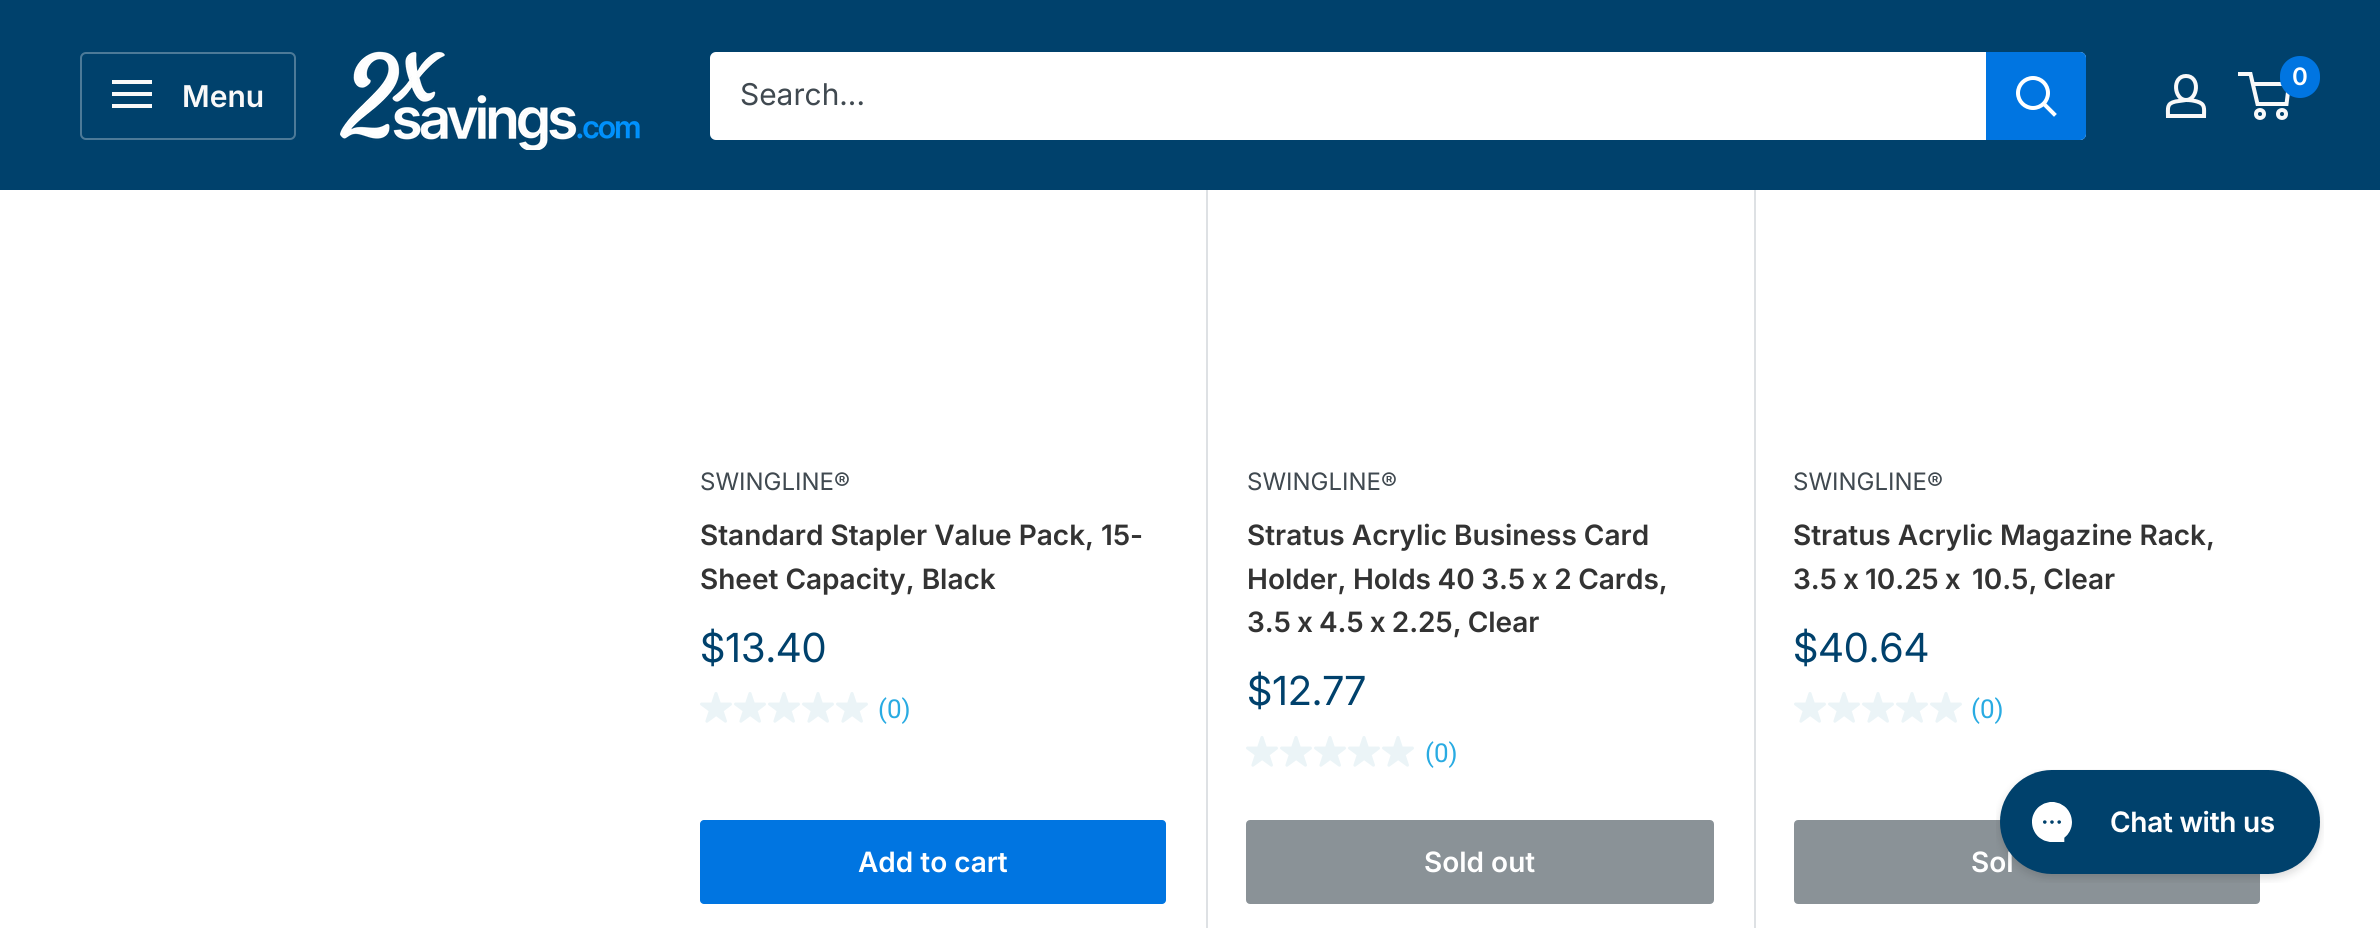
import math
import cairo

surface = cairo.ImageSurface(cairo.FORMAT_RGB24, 2380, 928)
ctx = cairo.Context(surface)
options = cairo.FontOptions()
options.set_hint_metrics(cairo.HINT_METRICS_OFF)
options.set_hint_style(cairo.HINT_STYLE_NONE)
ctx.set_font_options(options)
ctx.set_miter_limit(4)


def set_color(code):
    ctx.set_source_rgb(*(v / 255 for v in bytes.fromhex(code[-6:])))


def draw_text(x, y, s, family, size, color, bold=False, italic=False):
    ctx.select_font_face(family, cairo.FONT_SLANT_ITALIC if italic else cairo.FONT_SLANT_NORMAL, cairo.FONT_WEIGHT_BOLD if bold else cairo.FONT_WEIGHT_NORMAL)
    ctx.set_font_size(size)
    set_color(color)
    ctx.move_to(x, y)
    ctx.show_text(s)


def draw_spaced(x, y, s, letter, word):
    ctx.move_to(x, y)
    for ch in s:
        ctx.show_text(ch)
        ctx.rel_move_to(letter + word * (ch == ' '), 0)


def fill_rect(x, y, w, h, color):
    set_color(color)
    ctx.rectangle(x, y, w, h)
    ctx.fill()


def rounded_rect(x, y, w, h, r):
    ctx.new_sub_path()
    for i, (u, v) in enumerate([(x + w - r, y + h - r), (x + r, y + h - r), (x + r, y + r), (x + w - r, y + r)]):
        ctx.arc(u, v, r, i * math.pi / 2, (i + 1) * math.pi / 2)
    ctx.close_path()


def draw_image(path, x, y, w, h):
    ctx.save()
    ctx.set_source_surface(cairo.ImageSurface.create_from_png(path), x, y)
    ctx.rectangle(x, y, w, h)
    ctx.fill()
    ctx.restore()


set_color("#ffffff")
ctx.paint()
fill_rect(0, 0, 2380, 190, "#00416c")
draw_image("assets/img1.png", 340, 51, 300, 99)
ctx.new_path()
ctx.move_to(2186, 100)
ctx.curve_to(2190, 100, 2193.5, 100.5, 2197, 101.5)
ctx.curve_to(2205.5, 104, 2204, 108.5, 2204, 116)
ctx.line_to(2168, 116)
ctx.curve_to(2168, 108, 2166.5, 103.5, 2175.5, 101.5)
ctx.close_path()
ctx.move_to(2186, 100)
ctx.curve_to(2174, 100, 2171.5, 76, 2186, 76)
ctx.curve_to(2200.5, 76, 2198, 100, 2186, 100)
ctx.close_path()
set_color("#f9f9f9")
ctx.set_line_width(4)
ctx.stroke()
ctx.arc(2260, 114, 4, 0, 2 * math.pi)
ctx.stroke()
ctx.arc(2282, 114, 4, 0, 2 * math.pi)
ctx.stroke()
ctx.new_path()
ctx.move_to(2252.5, 84)
ctx.line_to(2289, 84)
ctx.line_to(2286.5, 104)
ctx.line_to(2257.5, 104)
ctx.line_to(2250.5, 74)
ctx.line_to(2238, 74)
ctx.stroke()
set_color("#0075e1")
rounded_rect(2280, 56, 40, 42, 20)
ctx.fill()
draw_text(2292, 85, "0", "Inter SemiBold", 24, "#ffffff")
rounded_rect(81, 53, 214, 86, 5)
set_color("#4d7a98")
ctx.set_line_width(2)
ctx.stroke()
set_color("#f9f9f9")
ctx.set_fill_rule(cairo.FILL_RULE_EVEN_ODD)
ctx.new_path()
ctx.move_to(112, 104)
ctx.line_to(152, 104)
ctx.line_to(152, 108)
ctx.line_to(112, 108)
ctx.close_path()
ctx.move_to(112, 80)
ctx.line_to(152, 80)
ctx.line_to(152, 84)
ctx.line_to(112, 84)
ctx.close_path()
ctx.move_to(112, 92)
ctx.line_to(152, 92)
ctx.line_to(152, 96)
ctx.line_to(112, 96)
ctx.close_path()
ctx.fill()
draw_text(182, 107, "Menu", "Inter SemiBold", 30, "#f9f9f9")
set_color("#ffffff")
rounded_rect(710, 52, 1376, 88, 6)
ctx.fill()
draw_text(740, 105, "Search...", "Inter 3", 30, "#404950")
set_color("#0075e1")
ctx.new_path()
ctx.move_to(1986, 52)
ctx.line_to(2080, 52)
ctx.curve_to(2083.5, 52, 2086, 54.5, 2086, 58)
ctx.line_to(2086, 134)
ctx.curve_to(2086, 137.5, 2083.5, 140, 2080, 140)
ctx.line_to(1986, 140)
ctx.close_path()
ctx.fill()
ctx.new_path()
ctx.move_to(2054, 114)
ctx.line_to(2044, 104)
set_color("#ffffff")
ctx.set_line_width(4)
ctx.set_line_cap(cairo.LINE_CAP_SQUARE)
ctx.stroke()
ctx.arc(2033, 93, 15, 0, 2 * math.pi)
ctx.set_line_cap(cairo.LINE_CAP_BUTT)
ctx.stroke()
draw_text(700, 490, "SWINGLINE®", "Inter", 24, "#404950")
draw_text(700, 545, "Standard Stapler Value Pack, 15-", "Inter SemiBold", 28, "#333333")
draw_text(700, 589, "Sheet Capacity, Black", "Inter SemiBold", 28, "#333333")
draw_text(700, 662, "$13.40", "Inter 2", 40, "#00416c")
draw_image("assets/img2.png", 700, 692, 32, 31)
draw_image("assets/img2.png", 734, 692, 32, 31)
draw_image("assets/img2.png", 768, 692, 32, 31)
draw_image("assets/img2.png", 802, 692, 32, 31)
draw_image("assets/img2.png", 836, 692, 32, 31)
draw_text(878, 718, "(0)", "Roboto", 26, "#29abe2")
set_color("#0075e1")
rounded_rect(700, 820, 466, 84, 4)
ctx.fill()
draw_text(858, 872, "Add to cart", "Inter SemiBold", 28, "#ffffff")
fill_rect(1206, 190, 2, 738, "#dee1e4")
draw_text(1247, 490, "SWINGLINE®", "Inter", 24, "#404950")
draw_text(1247, 545, "Stratus Acrylic Business Card", "Inter SemiBold", 28, "#333333")
draw_spaced(1247, 589, "Holder, Holds 40 3.5 x 2 Cards,", 0, -0.5)
draw_spaced(1247, 632, "3.5 x 4.5 x 2.25, Clear", 0, -1)
draw_text(1247, 705, "$12.77", "Inter 2", 40, "#00416c")
draw_image("assets/img2.png", 1246, 736, 32, 31)
draw_image("assets/img2.png", 1280, 736, 32, 31)
draw_image("assets/img2.png", 1314, 736, 32, 31)
draw_image("assets/img2.png", 1348, 736, 32, 31)
draw_image("assets/img2.png", 1382, 736, 32, 31)
draw_text(1425, 762, "(0)", "Roboto", 26, "#29abe2")
set_color("#8a9297")
rounded_rect(1247, 821, 466, 82, 3)
ctx.fill_preserve()
ctx.set_line_width(2)
ctx.stroke()
draw_text(1424, 872, "Sold out", "Inter SemiBold", 28, "#ffffff")
fill_rect(1754, 190, 2, 738, "#dee1e4")
draw_text(1793, 490, "SWINGLINE®", "Inter", 24, "#404950")
draw_text(1793, 545, "Stratus Acrylic Magazine Rack,", "Inter SemiBold", 28, "#333333")
draw_spaced(1793, 589, "3.5 x 10.25 x", 0, -1)
draw_spaced(1972, 589, "10.5, Clear", 0, -1)
draw_text(1793, 662, "$40.64", "Inter 2", 40, "#00416c")
draw_image("assets/img2.png", 1794, 692, 32, 31)
draw_image("assets/img2.png", 1828, 692, 32, 31)
draw_image("assets/img2.png", 1862, 692, 32, 31)
draw_image("assets/img2.png", 1896, 692, 32, 31)
draw_image("assets/img2.png", 1930, 692, 32, 31)
draw_text(1971, 718, "(0)", "Roboto", 26, "#29abe2")
set_color("#8a9297")
rounded_rect(1795, 821, 464, 82, 3)
ctx.fill_preserve()
ctx.stroke()
draw_text(1971, 872, "Sol", "Inter SemiBold", 28, "#ffffff")
draw_image("assets/img3.png", 1996, 769, 328, 114)
surface.write_to_png("output.png")
